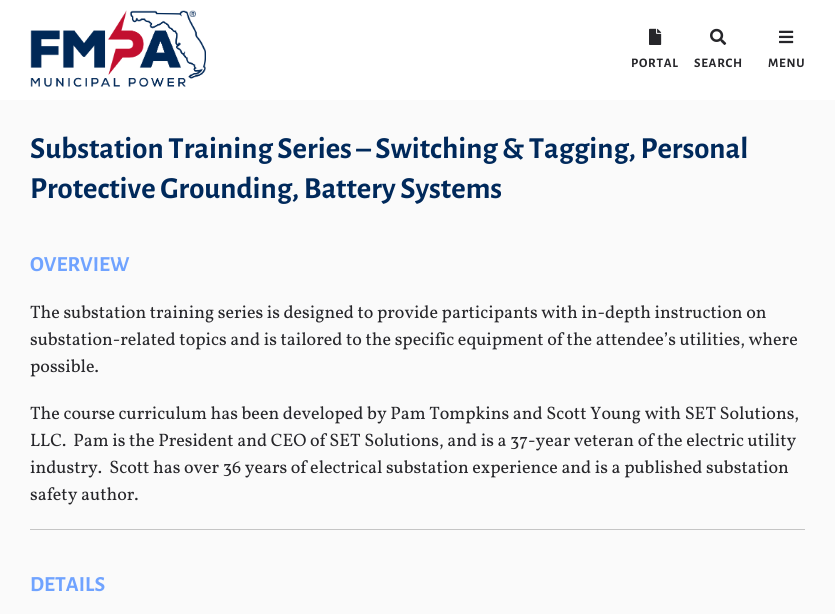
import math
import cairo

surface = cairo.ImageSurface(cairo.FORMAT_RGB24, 835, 614)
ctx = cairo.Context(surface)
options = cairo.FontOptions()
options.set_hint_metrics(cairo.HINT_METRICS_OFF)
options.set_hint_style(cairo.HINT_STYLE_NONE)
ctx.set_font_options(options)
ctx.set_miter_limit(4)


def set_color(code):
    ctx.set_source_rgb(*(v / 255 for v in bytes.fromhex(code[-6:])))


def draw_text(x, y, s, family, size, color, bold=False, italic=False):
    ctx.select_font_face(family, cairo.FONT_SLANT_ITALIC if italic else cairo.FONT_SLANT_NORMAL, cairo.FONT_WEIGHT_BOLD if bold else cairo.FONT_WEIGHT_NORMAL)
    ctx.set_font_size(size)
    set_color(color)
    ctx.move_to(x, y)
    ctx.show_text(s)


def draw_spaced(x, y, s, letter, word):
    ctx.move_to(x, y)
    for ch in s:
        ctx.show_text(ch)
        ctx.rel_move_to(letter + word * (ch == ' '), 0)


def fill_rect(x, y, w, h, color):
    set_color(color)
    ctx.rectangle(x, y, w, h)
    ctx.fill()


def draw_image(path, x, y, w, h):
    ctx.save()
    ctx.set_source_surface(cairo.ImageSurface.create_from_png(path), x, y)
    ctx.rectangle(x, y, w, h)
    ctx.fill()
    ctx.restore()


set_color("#ffffff")
ctx.paint()
draw_image("assets/img1.png", 30, 10, 176, 77)
draw_image("assets/img2.png", 649, 28, 13, 17)
ctx.select_font_face("Alegreya Sans", cairo.FONT_SLANT_NORMAL, cairo.FONT_WEIGHT_BOLD)
ctx.set_font_size(13)
set_color("#26262a")
draw_spaced(631, 67, "PORTAL", 0.75, 0)
draw_image("assets/img3.png", 710, 28, 17, 17)
draw_spaced(694, 67, "SEARCH", 0.75, 0)
draw_image("assets/img4.png", 779, 30, 15, 14)
draw_spaced(768, 67, "MENU", 0.75, 0)
fill_rect(0, 100, 835, 514, "#fafafa")
draw_text(30, 158, "Substation Training Series – Switching & Tagging, Personal", "Alegreya Sans", 30.6, "#00295b", bold=True)
draw_text(30, 198, "Protective Grounding, Battery Systems", "Alegreya Sans", 30.6, "#00295b", bold=True)
draw_text(30, 271, "OVERVIEW", "Alegreya Sans", 21.5, "#70a3ff", bold=True)
draw_text(30, 318, "The substation training series is designed to provide participants with in-depth instruction on", "Vollkorn", 18, "#26262a")
draw_text(30, 345, "substation-related topics and is tailored to the specific equipment of the attendee’s utilities, where", "Vollkorn", 18, "#26262a")
draw_text(30, 372, "possible.", "Vollkorn", 18, "#26262a")
draw_text(30, 419, "The course curriculum has been developed by Pam Tompkins and Scott Young with SET Solutions,", "Vollkorn", 18, "#26262a")
draw_text(30, 446, "LLC.  Pam is the President and CEO of SET Solutions, and is a 37-year veteran of the electric utility", "Vollkorn", 18, "#26262a")
draw_text(30, 473, "industry.  Scott has over 36 years of electrical substation experience and is a published substation", "Vollkorn", 18, "#26262a")
draw_text(30, 500, "safety author.", "Vollkorn", 18, "#26262a")
fill_rect(30, 529, 775, 1, "#c5c5c5")
draw_text(30, 591, "DETAILS", "Alegreya Sans", 21.5, "#70a3ff", bold=True)
surface.write_to_png("output.png")
